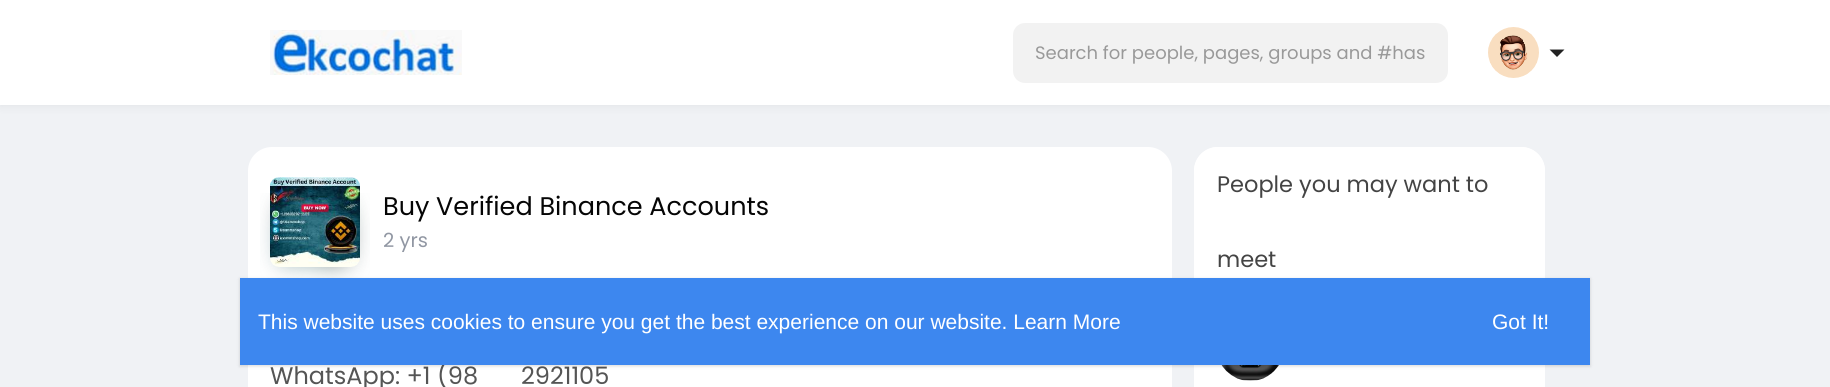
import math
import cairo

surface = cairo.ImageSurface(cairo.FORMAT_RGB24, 1830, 387)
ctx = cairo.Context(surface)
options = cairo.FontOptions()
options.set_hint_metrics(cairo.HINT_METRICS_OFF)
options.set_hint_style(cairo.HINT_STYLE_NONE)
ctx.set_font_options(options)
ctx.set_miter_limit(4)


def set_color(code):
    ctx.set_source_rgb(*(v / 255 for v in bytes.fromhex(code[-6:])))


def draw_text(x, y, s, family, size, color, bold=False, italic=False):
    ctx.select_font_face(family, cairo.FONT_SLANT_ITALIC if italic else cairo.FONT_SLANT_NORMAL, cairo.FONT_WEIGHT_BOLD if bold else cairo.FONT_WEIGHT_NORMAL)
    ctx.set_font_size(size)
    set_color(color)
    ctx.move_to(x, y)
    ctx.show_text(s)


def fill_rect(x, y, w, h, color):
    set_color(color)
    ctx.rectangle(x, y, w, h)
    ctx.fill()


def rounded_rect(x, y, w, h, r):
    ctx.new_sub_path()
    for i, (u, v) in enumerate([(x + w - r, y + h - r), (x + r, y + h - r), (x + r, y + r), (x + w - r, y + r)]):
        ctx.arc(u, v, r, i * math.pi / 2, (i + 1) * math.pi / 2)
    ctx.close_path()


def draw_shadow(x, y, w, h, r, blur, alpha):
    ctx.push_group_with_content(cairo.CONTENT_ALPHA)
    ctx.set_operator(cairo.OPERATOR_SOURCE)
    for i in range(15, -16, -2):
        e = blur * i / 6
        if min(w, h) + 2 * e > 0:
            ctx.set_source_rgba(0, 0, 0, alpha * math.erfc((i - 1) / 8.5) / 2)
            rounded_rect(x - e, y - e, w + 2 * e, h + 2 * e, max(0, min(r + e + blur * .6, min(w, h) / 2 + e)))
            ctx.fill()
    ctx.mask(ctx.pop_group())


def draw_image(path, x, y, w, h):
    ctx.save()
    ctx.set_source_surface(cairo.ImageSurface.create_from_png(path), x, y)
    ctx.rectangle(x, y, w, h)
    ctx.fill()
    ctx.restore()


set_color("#f0f2f5")
ctx.paint()
set_color("#000000")
draw_shadow(0, 2, 1830, 105, 0, 4.5, 0.05)
fill_rect(0, 0, 1830, 105, "#ffffff")
draw_image("assets/img1.png", 270, 30, 192, 45)
set_color("#f2f2f2")
rounded_rect(1013, 23, 435, 60, 12)
ctx.fill()
draw_text(1035, 59, "Search for people, pages, groups and #has", "Poppins", 18, "#999999")
draw_image("assets/img2.png", 1488, 27, 51, 51)
set_color("#222222")
ctx.new_path()
ctx.move_to(1549.5, 49.5)
ctx.line_to(1564.5, 49.5)
ctx.line_to(1557, 57)
ctx.close_path()
ctx.fill()
set_color("#ffffff")
rounded_rect(248, 147, 924, 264, 24)
ctx.fill()
draw_image("assets/img4.png", 260, 193, 110, 85)
draw_image("assets/img3.png", 270, 177, 90, 90)
draw_text(383, 215, "Buy Verified Binance Accounts", "Poppins", 25.5, "#050505")
draw_text(383, 247, "2 yrs", "Poppins", 19.5, "#9197a3")
draw_text(270, 384, "WhatsApp: +1 (98", "Poppins", 24, "#555555")
draw_text(521, 384, "2921105", "Poppins", 24, "#555555")
set_color("#ffffff")
rounded_rect(1194, 147, 351, 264, 24)
ctx.fill()
ctx.new_path()
ctx.move_to(1218, 147)
ctx.line_to(1521, 147)
ctx.curve_to(1534.5, 147, 1545, 157.5, 1545, 171)
ctx.line_to(1545, 297)
ctx.line_to(1194, 297)
ctx.line_to(1194, 171)
ctx.curve_to(1194, 157.5, 1204.5, 147, 1218, 147)
ctx.close_path()
ctx.fill()
draw_text(1217, 192, "People you may want to", "Poppins", 22.5, "#444444")
draw_text(1217, 267, "meet", "Poppins", 22.5, "#444444")
draw_image("assets/img5.png", 1221, 365, 58, 16)
set_color("#000000")
draw_shadow(240, 279, 1350, 87, 0, 1.5, 0.06)
draw_shadow(240, 279, 1350, 87, 0, 2, 0.1)
fill_rect(240, 278, 1350, 87, "#3d87ef")
draw_text(258, 329, "This website uses cookies to ensure you get the best experience on our website. Learn More", "Liberation Sans", 21, "#ffffff")
draw_text(1492, 329, "Got It!", "Liberation Sans", 21, "#ffffff")
surface.write_to_png("output.png")
